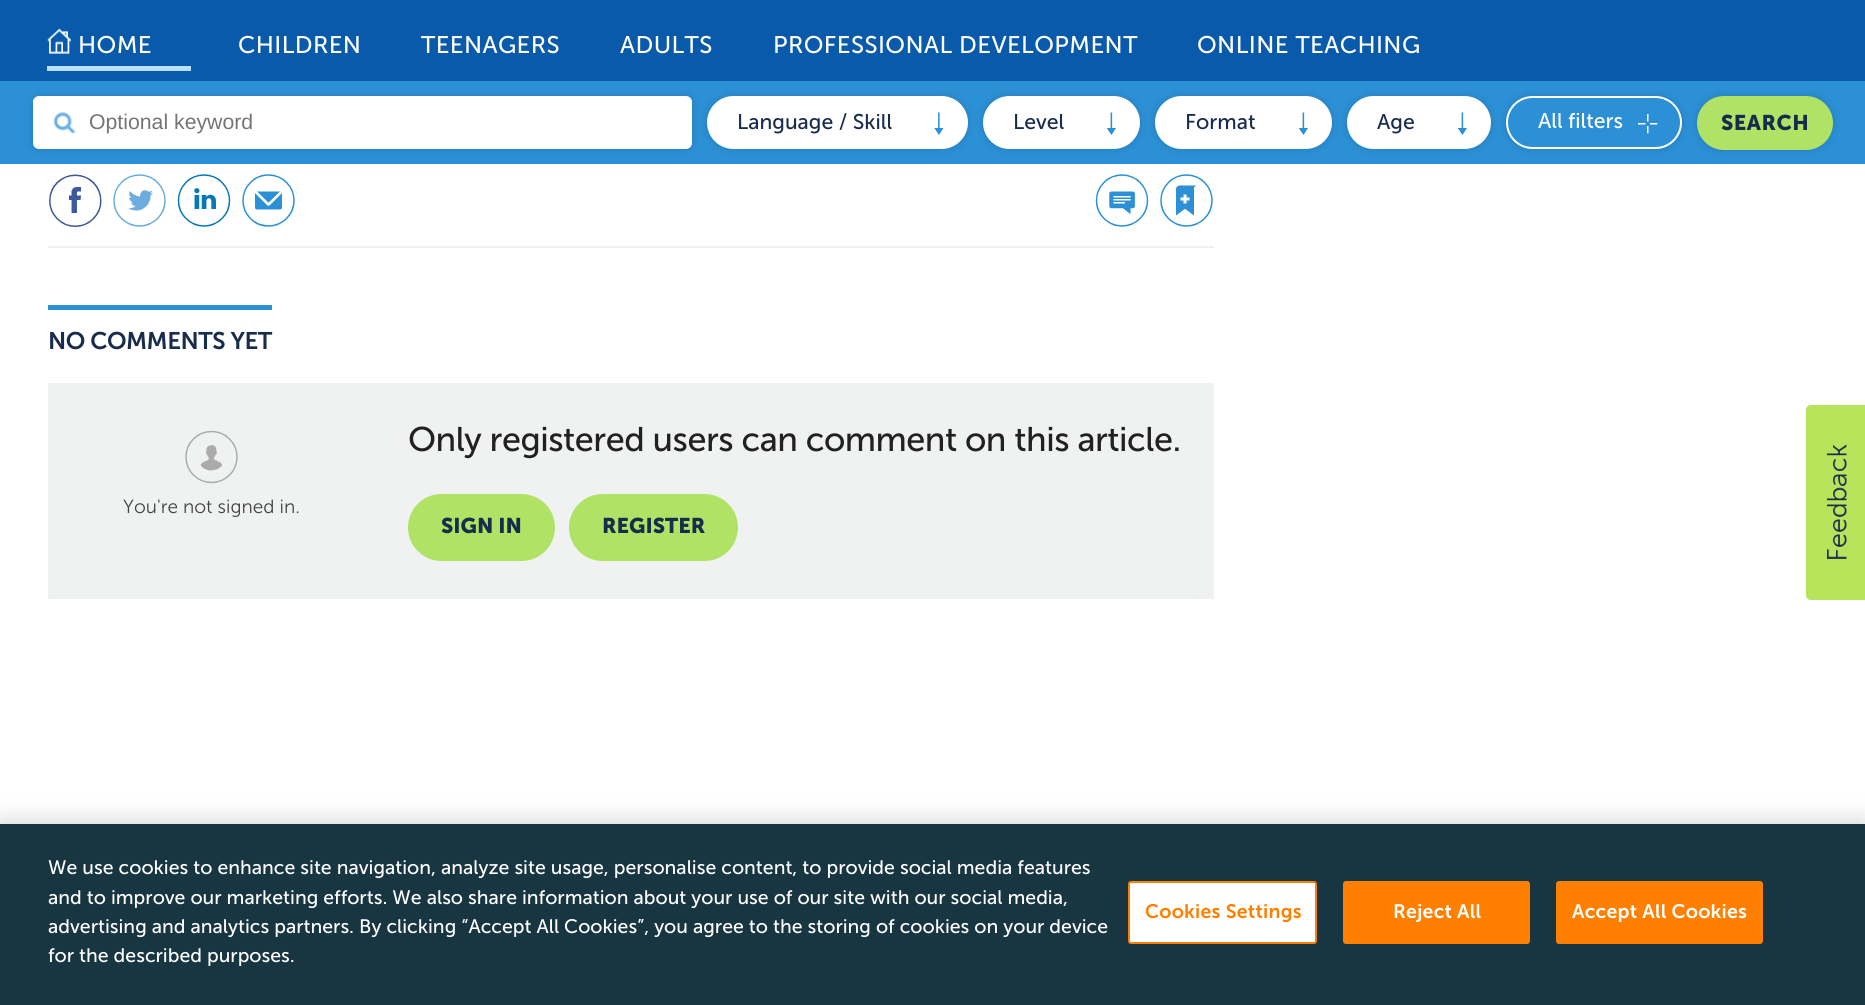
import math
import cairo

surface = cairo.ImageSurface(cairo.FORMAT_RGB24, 1865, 1005)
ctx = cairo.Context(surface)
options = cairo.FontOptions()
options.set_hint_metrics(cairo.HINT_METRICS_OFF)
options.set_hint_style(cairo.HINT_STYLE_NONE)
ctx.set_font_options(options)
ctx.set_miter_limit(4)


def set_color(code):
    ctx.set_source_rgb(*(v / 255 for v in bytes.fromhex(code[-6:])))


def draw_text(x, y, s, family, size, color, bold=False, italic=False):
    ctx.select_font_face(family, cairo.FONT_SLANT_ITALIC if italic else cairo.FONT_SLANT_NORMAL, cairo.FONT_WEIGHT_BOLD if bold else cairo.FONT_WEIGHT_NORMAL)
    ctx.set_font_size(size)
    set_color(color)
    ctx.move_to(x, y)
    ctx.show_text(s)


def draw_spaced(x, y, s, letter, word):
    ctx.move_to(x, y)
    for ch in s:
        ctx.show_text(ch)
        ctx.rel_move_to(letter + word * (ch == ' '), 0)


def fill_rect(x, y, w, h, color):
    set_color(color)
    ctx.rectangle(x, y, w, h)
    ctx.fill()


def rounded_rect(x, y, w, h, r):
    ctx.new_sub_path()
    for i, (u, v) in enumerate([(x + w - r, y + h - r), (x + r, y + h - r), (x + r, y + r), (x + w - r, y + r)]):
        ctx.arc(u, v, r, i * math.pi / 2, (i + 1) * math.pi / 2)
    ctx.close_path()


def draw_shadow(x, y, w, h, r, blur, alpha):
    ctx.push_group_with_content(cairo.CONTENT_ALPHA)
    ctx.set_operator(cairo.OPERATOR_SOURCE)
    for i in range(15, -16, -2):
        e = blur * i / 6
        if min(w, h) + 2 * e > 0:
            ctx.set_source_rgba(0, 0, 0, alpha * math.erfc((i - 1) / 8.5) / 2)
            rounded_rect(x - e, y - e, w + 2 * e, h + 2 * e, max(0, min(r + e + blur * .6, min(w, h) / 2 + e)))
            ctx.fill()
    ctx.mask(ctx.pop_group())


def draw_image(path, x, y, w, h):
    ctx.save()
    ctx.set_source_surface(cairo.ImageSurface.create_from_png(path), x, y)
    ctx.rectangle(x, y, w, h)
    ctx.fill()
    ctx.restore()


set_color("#ffffff")
ctx.paint()
fill_rect(0, 0, 1865, 81, "#0a5aab")
draw_image("assets/img1.png", 47, 28, 24, 26)
draw_image("assets/img2.png", 47, 28, 24, 26)
ctx.select_font_face("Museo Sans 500")
ctx.set_font_size(24)
set_color("#ffffff")
draw_spaced(78, 53, "HOME", 0.4, 0)
fill_rect(47, 66, 144, 5, "#b9e1ff")
set_color("#ffffff")
draw_spaced(238, 53, "CHILDREN", 0.4, 0)
draw_spaced(421, 53, "TEENAGERS", 0.4, 0)
draw_spaced(620, 53, "ADULTS", 0.4, 0)
draw_spaced(773, 53, "PROFESSIONAL DEVELOPMENT", 0.4, 0)
draw_spaced(1197, 53, "ONLINE TEACHING", 0.4, 0)
fill_rect(0, 81, 1865, 83, "#2c90d6")
set_color("#000000")
draw_shadow(33, 96, 659, 53, 6, 4, 0.15)
set_color("#ffffff")
rounded_rect(33, 96, 659, 53, 6)
ctx.fill()
draw_image("assets/img3.png", 53, 112, 23, 22)
draw_text(89, 129, "Optional keyword", "Liberation Sans", 21.25, "#757575")
set_color("#000000")
draw_shadow(707, 96, 261, 53, 26.5, 4, 0.15)
set_color("#ffffff")
rounded_rect(708, 97, 259, 51, 25.5)
ctx.fill_preserve()
ctx.stroke()
draw_text(737, 129, "Language / Skill", "Museo Sans 500", 21.25, "#182c4c")
draw_image("assets/img4.png", 934, 112, 10, 23)
set_color("#000000")
draw_shadow(983, 96, 157, 53, 26.5, 4, 0.15)
set_color("#ffffff")
rounded_rect(984, 97, 155, 51, 25.5)
ctx.fill_preserve()
ctx.stroke()
draw_text(1013, 129, "Level", "Museo Sans 500", 21.25, "#182c4c")
draw_image("assets/img5.png", 1106, 112, 10, 23)
set_color("#000000")
draw_shadow(1155, 96, 177, 53, 26.5, 4, 0.15)
set_color("#ffffff")
rounded_rect(1156, 97, 175, 51, 25.5)
ctx.fill_preserve()
ctx.stroke()
draw_text(1185, 129, "Format", "Museo Sans 500", 21.25, "#182c4c")
draw_image("assets/img5.png", 1298, 112, 10, 23)
set_color("#000000")
draw_shadow(1347, 96, 144, 53, 26.5, 4, 0.15)
set_color("#ffffff")
rounded_rect(1348, 97, 142, 51, 25.5)
ctx.fill_preserve()
ctx.stroke()
draw_text(1377, 129, "Age", "Museo Sans 500", 21.25, "#182c4c")
draw_image("assets/img5.png", 1457, 112, 10, 23)
set_color("#000000")
draw_shadow(1506, 96, 176, 53, 26.5, 4, 0.15)
set_color("#2c90d6")
rounded_rect(1507, 97, 174, 51, 25.5)
ctx.fill_preserve()
set_color("#ffffff")
ctx.stroke()
draw_text(1538, 128, "All filters", "Museo Sans 500", 21.25, "#ffffff")
draw_image("assets/img6.png", 1638, 114, 20, 20)
set_color("#000000")
draw_shadow(1697, 96, 136, 54, 27, 4, 0.15)
set_color("#b0e265")
rounded_rect(1697, 96, 136, 54, 27)
ctx.fill()
ctx.select_font_face("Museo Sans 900", cairo.FONT_SLANT_NORMAL, cairo.FONT_WEIGHT_BOLD)
set_color("#182c4c")
draw_spaced(1721, 130, "SEARCH", 0.5, 0)
fill_rect(48, 246, 1166, 2, "#f0f2f2")
draw_image("assets/img7.png", 49, 174, 53, 53)
draw_image("assets/img8.png", 113, 174, 53, 53)
draw_image("assets/img9.png", 177, 174, 54, 53)
draw_image("assets/img10.png", 242, 174, 53, 53)
draw_image("assets/img11.png", 1095, 174, 54, 53)
draw_image("assets/img12.png", 1160, 174, 53, 53)
fill_rect(48, 305, 224, 5, "#2c90d6")
ctx.select_font_face("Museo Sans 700 SemiBold")
ctx.set_font_size(24)
set_color("#182c4c")
draw_spaced(48, 349, "NO COMMENTS YET", -0.48, 0)
fill_rect(48, 383, 1166, 216, "#f0f2f2")
draw_image("assets/img13.png", 185, 430, 53, 54)
draw_text(123, 513, "You're not signed in.", "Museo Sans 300 Light", 19, "#444444")
ctx.select_font_face("Museo Sans 500")
ctx.set_font_size(34.2)
set_color("#212121")
draw_spaced(408, 451, "Only registered users can comment on this article.", -0.48, 0)
set_color("#b0e265")
rounded_rect(408, 494, 147, 67, 33.5)
ctx.fill()
draw_text(441, 533, "SIGN IN", "Museo Sans 900", 21.25, "#182c4c", bold=True)
set_color("#b0e265")
rounded_rect(569, 494, 169, 67, 33.5)
ctx.fill()
draw_text(602, 533, "REGISTER", "Museo Sans 900", 21.25, "#182c4c", bold=True)
draw_image("assets/img14.png", 1806, 405, 59, 195)
set_color("#000000")
draw_shadow(0, 824, 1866, 181, 0, 13.5, 0.2)
fill_rect(0, 824, 1865, 181, "#183642")
draw_text(48, 874, "We use cookies to enhance site navigation, analyze site usage, personalise content, to provide social media features", "Museo Sans 500", 19.5, "#ffffff")
draw_text(48, 904, "and to improve our marketing efforts. We also share information about your use of our site with our social media,", "Museo Sans 500", 19.5, "#ffffff")
draw_text(48, 933, "advertising and analytics partners. By clicking “Accept All Cookies”, you agree to the storing of cookies on your device", "Museo Sans 500", 19.5, "#ffffff")
draw_text(48, 962, "for the described purposes.", "Museo Sans 500", 19.5, "#ffffff")
rounded_rect(1129, 882, 187, 61, 2)
ctx.fill_preserve()
set_color("#ff8000")
ctx.stroke()
ctx.select_font_face("Museo Sans 700 SemiBold")
draw_spaced(1145, 918, "Cookies Settings", 0.25, 0)
rounded_rect(1344, 882, 185, 61, 2)
ctx.fill_preserve()
ctx.stroke()
set_color("#ffffff")
draw_spaced(1393, 918, "Reject All", 0.25, 0)
set_color("#ff8000")
rounded_rect(1557, 882, 205, 61, 2)
ctx.fill_preserve()
ctx.stroke()
set_color("#ffffff")
draw_spaced(1572, 918, "Accept All Cookies", 0.25, 0)
surface.write_to_png("output.png")
